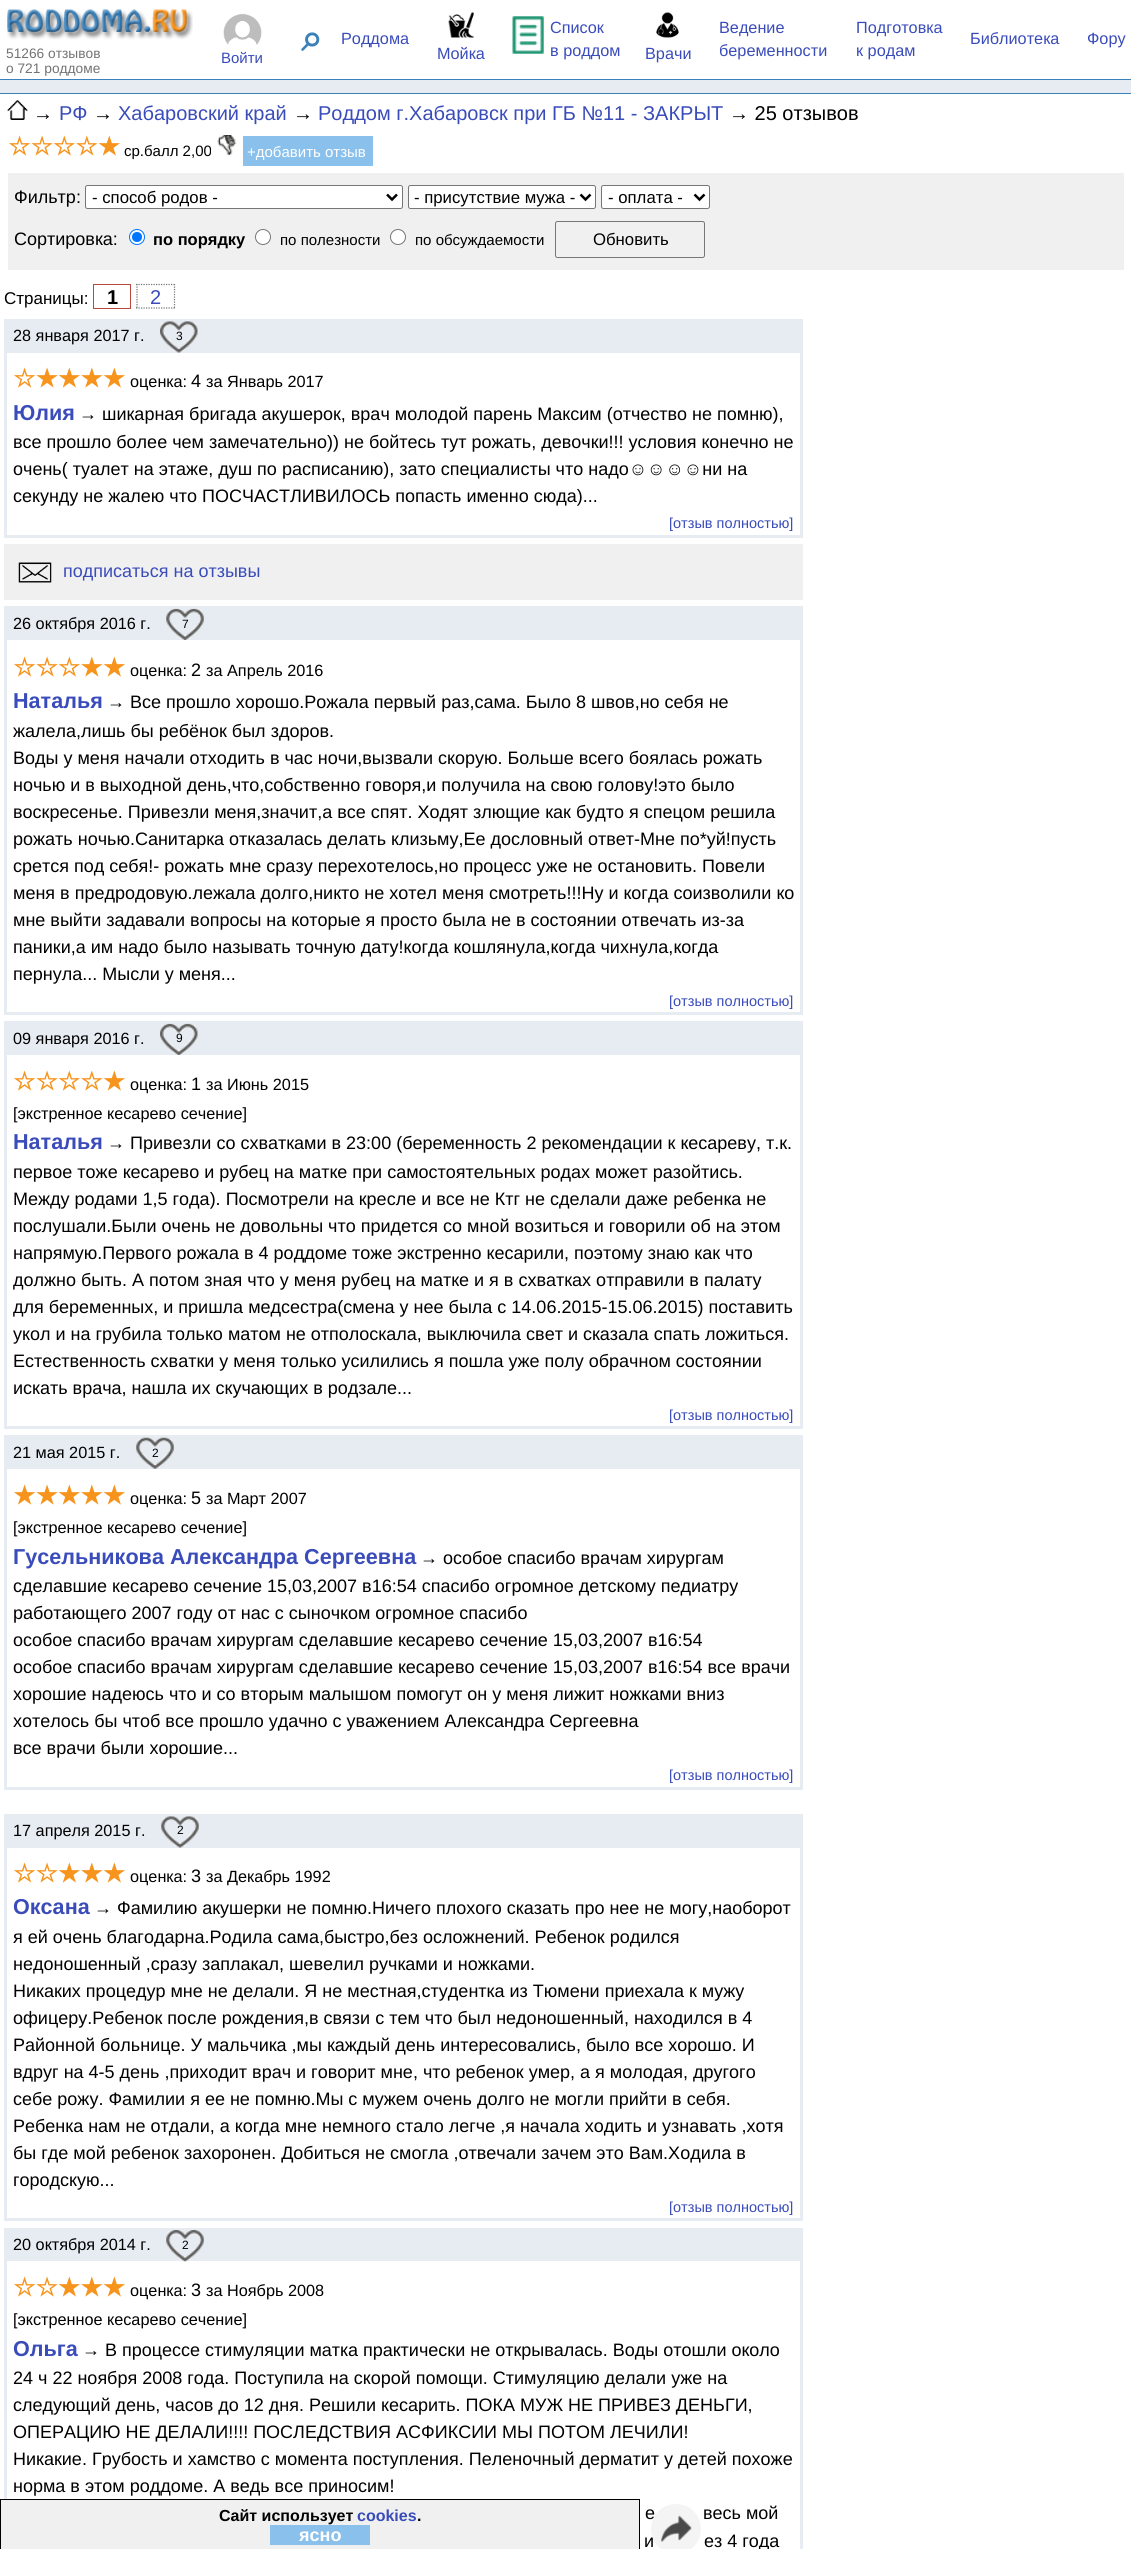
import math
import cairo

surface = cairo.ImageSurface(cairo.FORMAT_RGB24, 1131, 2549)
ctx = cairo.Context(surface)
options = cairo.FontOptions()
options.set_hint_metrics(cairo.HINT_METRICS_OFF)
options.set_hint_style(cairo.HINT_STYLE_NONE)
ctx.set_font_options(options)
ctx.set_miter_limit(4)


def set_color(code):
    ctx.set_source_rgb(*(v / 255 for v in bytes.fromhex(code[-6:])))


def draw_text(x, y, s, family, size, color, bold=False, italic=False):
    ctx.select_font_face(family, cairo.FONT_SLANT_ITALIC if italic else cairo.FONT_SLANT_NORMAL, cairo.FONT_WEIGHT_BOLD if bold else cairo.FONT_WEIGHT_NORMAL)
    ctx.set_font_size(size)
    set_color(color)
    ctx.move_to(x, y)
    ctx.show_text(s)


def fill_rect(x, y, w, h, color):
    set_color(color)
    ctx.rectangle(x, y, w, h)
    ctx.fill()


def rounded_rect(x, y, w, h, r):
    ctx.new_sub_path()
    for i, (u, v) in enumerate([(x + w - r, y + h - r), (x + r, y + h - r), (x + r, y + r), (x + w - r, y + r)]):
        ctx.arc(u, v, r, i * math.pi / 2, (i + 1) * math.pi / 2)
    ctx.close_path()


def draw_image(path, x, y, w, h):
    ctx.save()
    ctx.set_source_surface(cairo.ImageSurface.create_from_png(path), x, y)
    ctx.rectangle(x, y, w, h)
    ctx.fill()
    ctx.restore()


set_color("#e6ecf2")
ctx.paint()
fill_rect(0, 0, 1131, 79, "#ffffff")
fill_rect(0, 79, 1131, 1, "#3a81ba")
draw_text(301, 51, "⌕", "FreeSerif", 38, "#3a81ba", bold=True)
draw_text(341, 44, "Роддома", "Liberation Sans", 16.25, "#3a4cba")
draw_image("assets/img1.png", 512, 16, 32, 38)
draw_text(550, 33, "Список", "Liberation Sans", 16.25, "#3a4cba")
draw_text(550, 56, "в роддом", "Liberation Sans", 16.25, "#3a4cba")
draw_text(719, 33, "Ведение", "Liberation Sans", 16.25, "#3a4cba")
draw_text(719, 56, "беременности", "Liberation Sans", 16.25, "#3a4cba")
draw_text(856, 33, "Подготовка", "Liberation Sans", 16.25, "#3a4cba")
draw_text(856, 56, "к родам", "Liberation Sans", 16.25, "#3a4cba")
draw_text(970, 44, "Библиотека", "Liberation Sans", 16.25, "#3a4cba")
draw_text(1087, 44, "Фору", "Liberation Sans", 16.25, "#3a4cba")
draw_image("assets/img2.png", 448, 12, 26, 26)
draw_text(437, 59, "Мойка", "Liberation Sans", 16.25, "#3a4cba")
draw_image("assets/img3.png", 656, 12, 23, 26)
draw_text(645, 59, "Врачи", "Liberation Sans", 16.25, "#3a4cba")
draw_image("assets/img4.png", 7, 9, 186, 31)
draw_text(6, 58, "51266 отзывов", "Liberation Sans", 13.75, "#737373")
draw_text(6, 73, "о 721 роддоме", "Liberation Sans", 13.75, "#737373")
draw_image("assets/img5.png", 223, 13, 39, 32)
draw_text(221, 63, "Войти", "Liberation Sans", 15, "#3a4cba")
fill_rect(0, 94, 1131, 2455, "#ffffff")
fill_rect(0, 93, 1131, 1, "#3a81ba")
draw_image("assets/img6.png", 7, 100, 21, 20)
draw_text(33, 120, "→", "Liberation Sans", 20, "#000000")
draw_text(59, 120, "РФ", "Liberation Sans", 20, "#3a4cba")
draw_text(93, 120, "→", "Liberation Sans", 20, "#000000")
draw_text(118, 120, "Хабаровский край", "Liberation Sans", 20, "#3a4cba")
draw_text(293, 120, "→", "Liberation Sans", 20, "#000000")
draw_text(318, 120, "Роддом г.Хабаровск при ГБ №11 - ЗАКРЫТ", "Liberation Sans", 20, "#3a4cba")
draw_text(729, 120, "→ 25 отзывов", "Liberation Sans", 20, "#000000")
draw_text(8, 155, "☆☆☆☆★", "DejaVu Sans", 25, "#f7941d", bold=True)
draw_text(124, 156, "ср.балл 2,00", "Liberation Sans", 15, "#000000")
draw_image("assets/img7.png", 217, 135, 20, 20)
fill_rect(243, 136, 130, 30, "#8ac0ec")
draw_text(247, 157, "+добавить отзыв", "Liberation Sans", 15, "#ffffff")
fill_rect(8, 173, 1116, 97, "#f0f0f0")
draw_text(14, 203, "Фильтр:", "Liberation Sans", 18, "#000000")
set_color("#ffffff")
rounded_rect(85.5, 185.5, 317, 23, 2)
ctx.fill_preserve()
set_color("#767676")
ctx.set_line_width(1)
ctx.stroke()
ctx.new_path()
ctx.move_to(387, 194.5)
ctx.line_to(392, 199.5)
ctx.line_to(397, 194.5)
set_color("#000000")
ctx.set_line_width(2.5)
ctx.stroke()
draw_text(92, 203, "- способ родов -", "Liberation Sans", 16.75, "#000000")
set_color("#ffffff")
rounded_rect(408.5, 185.5, 187, 23, 2)
ctx.fill_preserve()
set_color("#767676")
ctx.set_line_width(1)
ctx.stroke()
ctx.new_path()
ctx.move_to(580.5, 194.5)
ctx.line_to(585.5, 199.5)
ctx.line_to(590.5, 194.5)
set_color("#000000")
ctx.set_line_width(2.5)
ctx.stroke()
draw_text(414, 203, "- присутствие мужа -", "Liberation Sans", 16.75, "#000000")
set_color("#ffffff")
rounded_rect(601.5, 185.5, 108, 23, 2)
ctx.fill_preserve()
set_color("#767676")
ctx.set_line_width(1)
ctx.stroke()
ctx.new_path()
ctx.move_to(694.5, 194.5)
ctx.line_to(699.5, 199.5)
ctx.line_to(704.5, 194.5)
set_color("#000000")
ctx.set_line_width(2.5)
ctx.stroke()
draw_text(608, 203, "- оплата -", "Liberation Sans", 16.75, "#000000")
draw_text(14, 245, "Сортировка:", "Liberation Sans", 18, "#000000")
set_color("#ffffff")
ctx.new_path()
ctx.arc(137, 237, 7.5, 0, 2 * math.pi)
ctx.fill_preserve()
set_color("#0075ff")
ctx.set_line_width(1)
ctx.stroke()
ctx.arc(137, 237, 5, 0, 2 * math.pi)
ctx.fill()
draw_text(153, 245, "по порядку", "Liberation Sans", 16.5, "#000000", bold=True)
set_color("#ffffff")
ctx.new_path()
ctx.arc(263, 237, 7.5, 0, 2 * math.pi)
ctx.fill_preserve()
set_color("#767676")
ctx.stroke()
draw_text(280, 245, "по полезности", "Liberation Sans", 15, "#000000")
set_color("#ffffff")
ctx.new_path()
ctx.arc(398, 237, 7.5, 0, 2 * math.pi)
ctx.fill_preserve()
set_color("#767676")
ctx.stroke()
draw_text(415, 245, "по обсуждаемости", "Liberation Sans", 15, "#000000")
rounded_rect(555.5, 221.5, 149, 36, 2)
set_color("#767676")
ctx.stroke()
draw_text(593, 245, "Обновить", "Liberation Sans", 16.75, "#000000")
draw_text(4, 304, "Страницы:", "Liberation Sans", 17, "#000000")
ctx.rectangle(93.5, 284.5, 37, 24)
set_color("#ba493a")
ctx.stroke()
draw_text(107, 304, "1", "Liberation Sans", 20, "#000000", bold=True)
ctx.new_path()
ctx.move_to(136, 284.5)
ctx.line_to(175, 284.5)
ctx.move_to(174.5, 284)
ctx.line_to(174.5, 309)
ctx.move_to(136, 308)
ctx.line_to(175, 308)
ctx.move_to(137, 284)
ctx.line_to(137, 309)
set_color("#737373")
ctx.set_line_width(1.2)
ctx.set_dash([1.25, 1.25])
ctx.stroke()
draw_text(150, 304, "2", "Liberation Sans", 20, "#3a4cba")
ctx.rectangle(5.5, 320.5, 796, 216)
set_color("#e6ecf2")
ctx.set_line_width(3)
ctx.set_dash([])
ctx.stroke()
fill_rect(7, 322, 793, 31, "#e6ecf2")
draw_text(13, 341, "28 января 2017 г.", "Liberation Sans", 16.25, "#000000")
draw_image("assets/img8.png", 160, 321, 38, 32)
draw_text(176, 340, "3", "Liberation Sans", 12, "#000000")
draw_text(13, 387, "☆★★★★", "DejaVu Sans", 25, "#f7941d", bold=True)
draw_text(130, 387, "оценка:", "Liberation Sans", 16.25, "#000000")
draw_text(191, 387, "4", "Liberation Sans", 18, "#000000")
draw_text(206, 387, "за Январь 2017", "Liberation Sans", 16.25, "#000000")
draw_text(13, 420, "Юлия", "Liberation Sans", 21.6, "#3a4cba", bold=True)
draw_text(79, 420, "→ шикарная бригада акушерок, врач молодой парень Максим (отчество не помню),", "Liberation Sans", 18, "#000000")
draw_text(13, 448, "все прошло более чем замечательно)) не бойтесь тут рожать, девочки!!! условия конечно не", "Liberation Sans", 18, "#000000")
draw_text(13, 475, "очень( туалет на этаже, душ по расписанию), зато специалисты что надо☺☺☺☺ни на", "Liberation Sans", 18, "#000000")
draw_text(13, 502, "секунду не жалею что ПОСЧАСТЛИВИЛОСЬ попасть именно сюда)...", "Liberation Sans", 18, "#000000")
draw_text(669, 528, "[отзыв полностью]", "Liberation Sans", 14.5, "#3a4cba")
fill_rect(4, 544, 799, 56, "#f0f0f0")
draw_image("assets/img9.png", 18, 562, 34, 21)
draw_text(63, 577, "подписаться на отзывы", "Liberation Sans", 18, "#3a4cba")
ctx.rectangle(5.5, 607.5, 796, 406)
set_color("#e6ecf2")
ctx.stroke()
fill_rect(7, 609, 793, 31, "#e6ecf2")
draw_text(13, 629, "26 октября 2016 г.", "Liberation Sans", 16.25, "#000000")
draw_image("assets/img10.png", 166, 608, 38, 32)
draw_text(182, 628, "7", "Liberation Sans", 12, "#000000")
draw_text(13, 676, "☆☆☆★★", "DejaVu Sans", 25, "#f7941d", bold=True)
draw_text(130, 676, "оценка:", "Liberation Sans", 16.25, "#000000")
draw_text(191, 676, "2", "Liberation Sans", 18, "#000000")
draw_text(206, 676, "за Апрель 2016", "Liberation Sans", 16.25, "#000000")
draw_text(13, 708, "Наталья", "Liberation Sans", 21.6, "#3a4cba", bold=True)
draw_text(107, 708, "→ Все прошло хорошо.Рожала первый раз,сама. Было 8 швов,но себя не", "Liberation Sans", 18, "#000000")
draw_text(13, 737, "жалела,лишь бы ребёнок был здоров.", "Liberation Sans", 18, "#000000")
draw_text(13, 764, "Воды у меня начали отходить в час ночи,вызвали скорую. Больше всего боялась рожать", "Liberation Sans", 18, "#000000")
draw_text(13, 791, "ночью и в выходной день,что,собственно говоря,и получила на свою голову!это было", "Liberation Sans", 18, "#000000")
draw_text(13, 818, "воскресенье. Привезли меня,значит,а все спят. Ходят злющие как будто я спецом решила", "Liberation Sans", 18, "#000000")
draw_text(13, 845, "рожать ночью.Санитарка отказалась делать клизьму,Ее дословный ответ-Мне по*уй!пусть", "Liberation Sans", 18, "#000000")
draw_text(13, 872, "срется под себя!- рожать мне сразу перехотелось,но процесс уже не остановить. Повели", "Liberation Sans", 18, "#000000")
draw_text(13, 899, "меня в предродовую.лежала долго,никто не хотел меня смотреть!!!Ну и когда соизволили ко", "Liberation Sans", 18, "#000000")
draw_text(13, 926, "мне выйти задавали вопросы на которые я просто была не в состоянии отвечать из-за", "Liberation Sans", 18, "#000000")
draw_text(13, 953, "паники,а им надо было называть точную дату!когда кошлянула,когда чихнула,когда", "Liberation Sans", 18, "#000000")
draw_text(13, 980, "пернула... Мысли у меня...", "Liberation Sans", 18, "#000000")
draw_text(669, 1006, "[отзыв полностью]", "Liberation Sans", 14.5, "#3a4cba")
ctx.rectangle(5.5, 1022.5, 796, 405)
set_color("#e6ecf2")
ctx.stroke()
fill_rect(7, 1024, 793, 31, "#e6ecf2")
draw_text(13, 1044, "09 января 2016 г.", "Liberation Sans", 16.25, "#000000")
draw_image("assets/img11.png", 160, 1023, 38, 32)
draw_text(176, 1042, "9", "Liberation Sans", 12, "#000000")
draw_text(13, 1090, "☆☆☆☆★", "DejaVu Sans", 25, "#f7941d", bold=True)
draw_text(130, 1090, "оценка:", "Liberation Sans", 16.25, "#000000")
draw_text(191, 1090, "1", "Liberation Sans", 18, "#000000")
draw_text(206, 1090, "за Июнь 2015", "Liberation Sans", 16.25, "#000000")
draw_text(13, 1119, "[экстренное кесарево сечение]", "Liberation Sans", 16.25, "#000000")
draw_text(13, 1149, "Наталья", "Liberation Sans", 21.6, "#3a4cba", bold=True)
draw_text(107, 1149, "→ Привезли со схватками в 23:00 (беременность 2 рекомендации к кесареву, т.к.", "Liberation Sans", 18, "#000000")
draw_text(13, 1178, "первое тоже кесарево и рубец на матке при самостоятельных родах может разойтись.", "Liberation Sans", 18, "#000000")
draw_text(13, 1205, "Между родами 1,5 года). Посмотрели на кресле и все не Ктг не сделали даже ребенка не", "Liberation Sans", 18, "#000000")
draw_text(13, 1232, "послушали.Были очень не довольны что придется со мной возиться и говорили об на этом", "Liberation Sans", 18, "#000000")
draw_text(13, 1259, "напрямую.Первого рожала в 4 роддоме тоже экстренно кесарили, поэтому знаю как что", "Liberation Sans", 18, "#000000")
draw_text(13, 1286, "должно быть. А потом зная что у меня рубец на матке и я в схватках отправили в палату", "Liberation Sans", 18, "#000000")
draw_text(13, 1313, "для беременных, и пришла медсестра(смена у нее была с 14.06.2015-15.06.2015) поставить", "Liberation Sans", 18, "#000000")
draw_text(13, 1340, "укол и на грубила только матом не отполоскала, выключила свет и сказала спать ложиться.", "Liberation Sans", 18, "#000000")
draw_text(13, 1367, "Естественность схватки у меня только усилились я пошла уже полу обрачном состоянии", "Liberation Sans", 18, "#000000")
draw_text(13, 1394, "искать врача, нашла их скучающих в родзале...", "Liberation Sans", 18, "#000000")
draw_text(669, 1420, "[отзыв полностью]", "Liberation Sans", 14.5, "#3a4cba")
ctx.rectangle(5.5, 1436.5, 796, 352)
set_color("#e6ecf2")
ctx.stroke()
fill_rect(7, 1438, 793, 31, "#e6ecf2")
draw_text(13, 1458, "21 мая 2015 г.", "Liberation Sans", 16.25, "#000000")
draw_image("assets/img12.png", 136, 1437, 38, 32)
draw_text(152, 1457, "2", "Liberation Sans", 12, "#000000")
draw_text(13, 1504, "★★★★★", "DejaVu Sans", 25, "#f7941d", bold=True)
draw_text(130, 1504, "оценка:", "Liberation Sans", 16.25, "#000000")
draw_text(191, 1504, "5", "Liberation Sans", 18, "#000000")
draw_text(206, 1504, "за Март 2007", "Liberation Sans", 16.25, "#000000")
draw_text(13, 1533, "[экстренное кесарево сечение]", "Liberation Sans", 16.25, "#000000")
draw_text(13, 1564, "Гусельникова Александра Сергеевна", "Liberation Sans", 21.6, "#3a4cba", bold=True)
draw_text(420, 1564, "→ особое спасибо врачам хирургам", "Liberation Sans", 18, "#000000")
draw_text(13, 1592, "сделавшие кесарево сечение 15,03,2007 в16:54 спасибо огромное детскому педиатру", "Liberation Sans", 18, "#000000")
draw_text(13, 1619, "работающего 2007 году от нас с сыночком огромное спасибо", "Liberation Sans", 18, "#000000")
draw_text(13, 1646, "особое спасибо врачам хирургам сделавшие кесарево сечение 15,03,2007 в16:54", "Liberation Sans", 18, "#000000")
draw_text(13, 1673, "особое спасибо врачам хирургам сделавшие кесарево сечение 15,03,2007 в16:54 все врачи", "Liberation Sans", 18, "#000000")
draw_text(13, 1700, "хорошие надеюсь что и со вторым малышом помогут он у меня лижит ножками вниз", "Liberation Sans", 18, "#000000")
draw_text(13, 1727, "хотелось бы чтоб все прошло удачно с уважением Александра Сергеевна", "Liberation Sans", 18, "#000000")
draw_text(13, 1754, "все врачи были хорошие...", "Liberation Sans", 18, "#000000")
draw_text(669, 1780, "[отзыв полностью]", "Liberation Sans", 14.5, "#3a4cba")
ctx.rectangle(5.5, 1815.5, 796, 404)
set_color("#e6ecf2")
ctx.stroke()
fill_rect(7, 1817, 793, 31, "#e6ecf2")
draw_text(13, 1836, "17 апреля 2015 г.", "Liberation Sans", 16.25, "#000000")
draw_image("assets/img13.png", 161, 1816, 38, 32)
draw_text(177, 1834, "2", "Liberation Sans", 12, "#000000")
draw_text(13, 1882, "☆☆★★★", "DejaVu Sans", 25, "#f7941d", bold=True)
draw_text(130, 1882, "оценка:", "Liberation Sans", 16.25, "#000000")
draw_text(191, 1882, "3", "Liberation Sans", 18, "#000000")
draw_text(206, 1882, "за Декабрь 1992", "Liberation Sans", 16.25, "#000000")
draw_text(13, 1914, "Оксана", "Liberation Sans", 21.6, "#3a4cba", bold=True)
draw_text(94, 1914, "→ Фамилию акушерки не помню.Ничего плохого сказать про нее не могу,наоборот", "Liberation Sans", 18, "#000000")
draw_text(13, 1943, "я ей очень благодарна.Родила сама,быстро,без осложнений. Ребенок родился", "Liberation Sans", 18, "#000000")
draw_text(13, 1970, "недоношенный ,сразу заплакал, шевелил ручками и ножками.", "Liberation Sans", 18, "#000000")
draw_text(13, 1997, "Никаких процедур мне не делали. Я не местная,студентка из Тюмени приехала к мужу", "Liberation Sans", 18, "#000000")
draw_text(13, 2024, "офицеру.Ребенок после рождения,в связи с тем что был недоношенный, находился в 4", "Liberation Sans", 18, "#000000")
draw_text(13, 2051, "Районной больнице. У мальчика ,мы каждый день интересовались, было все хорошо. И", "Liberation Sans", 18, "#000000")
draw_text(13, 2078, "вдруг на 4-5 день ,приходит врач и говорит мне, что ребенок умер, а я молодая, другого", "Liberation Sans", 18, "#000000")
draw_text(13, 2105, "себе рожу. Фамилии я ее не помню.Мы с мужем очень долго не могли прийти в себя.", "Liberation Sans", 18, "#000000")
draw_text(13, 2132, "Ребенка нам не отдали, а когда мне немного стало легче ,я начала ходить и узнавать ,хотя", "Liberation Sans", 18, "#000000")
draw_text(13, 2159, "бы где мой ребенок захоронен. Добиться не смогла ,отвечали зачем это Вам.Ходила в", "Liberation Sans", 18, "#000000")
draw_text(13, 2186, "городскую...", "Liberation Sans", 18, "#000000")
draw_text(669, 2212, "[отзыв полностью]", "Liberation Sans", 14.5, "#3a4cba")
ctx.rectangle(5.5, 2229.5, 796, 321)
set_color("#e6ecf2")
ctx.stroke()
fill_rect(7, 2231, 793, 30, "#e6ecf2")
draw_text(13, 2250, "20 октября 2014 г.", "Liberation Sans", 16.25, "#000000")
draw_image("assets/img14.png", 166, 2230, 38, 32)
draw_text(182, 2249, "2", "Liberation Sans", 12, "#000000")
draw_text(13, 2296, "☆☆★★★", "DejaVu Sans", 25, "#f7941d", bold=True)
draw_text(130, 2296, "оценка:", "Liberation Sans", 16.25, "#000000")
draw_text(191, 2296, "3", "Liberation Sans", 18, "#000000")
draw_text(206, 2296, "за Ноябрь 2008", "Liberation Sans", 16.25, "#000000")
draw_text(13, 2325, "[экстренное кесарево сечение]", "Liberation Sans", 16.25, "#000000")
draw_text(13, 2356, "Ольга", "Liberation Sans", 21.6, "#3a4cba", bold=True)
draw_text(82, 2356, "→ В процессе стимуляции матка практически не открывалась. Воды отошли около", "Liberation Sans", 18, "#000000")
draw_text(13, 2384, "24 ч 22 ноября 2008 года. Поступила на скорой помощи. Стимуляцию делали уже на", "Liberation Sans", 18, "#000000")
draw_text(13, 2411, "следующий день, часов до 12 дня. Решили кесарить. ПОКА МУЖ НЕ ПРИВЕЗ ДЕНЬГИ,", "Liberation Sans", 18, "#000000")
draw_text(13, 2438, "ОПЕРАЦИЮ НЕ ДЕЛАЛИ!!!! ПОСЛЕДСТВИЯ АСФИКСИИ МЫ ПОТОМ ЛЕЧИЛИ!", "Liberation Sans", 18, "#000000")
draw_text(13, 2465, "Никакие. Грубость и хамство с момента поступления. Пеленочный дерматит у детей похоже", "Liberation Sans", 18, "#000000")
draw_text(13, 2492, "норма в этом роддоме. А ведь все приносим!", "Liberation Sans", 18, "#000000")
draw_text(645, 2519, "е", "Liberation Sans", 18, "#000000")
draw_text(703, 2519, "весь мой", "Liberation Sans", 18, "#000000")
draw_text(644, 2547, "и", "Liberation Sans", 18, "#000000")
draw_text(704, 2547, "ез 4 года", "Liberation Sans", 18, "#000000")
set_color("#f0f0f0")
ctx.rectangle(0.5, 2499.5, 639, 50)
ctx.fill_preserve()
set_color("#000000")
ctx.set_line_width(1)
ctx.stroke()
draw_text(219, 2521, "Сайт использует", "Liberation Sans", 16, "#000000", bold=True)
draw_text(357, 2521, "cookies", "Liberation Sans", 16, "#3a4cba", bold=True)
draw_text(417, 2521, ".", "Liberation Sans", 16, "#000000", bold=True)
fill_rect(270, 2525, 100, 20, "#8ac0ec")
draw_text(299, 2541, "ясно", "Liberation Sans", 18, "#ffffff", bold=True)
ctx.set_source_rgba(0.941, 0.941, 0.941, 0.7)
ctx.new_path()
ctx.arc(676, 2529, 25, 0, 2 * math.pi)
ctx.fill()
draw_image("assets/img15.png", 661, 2515, 31, 27)
surface.write_to_png("output.png")
